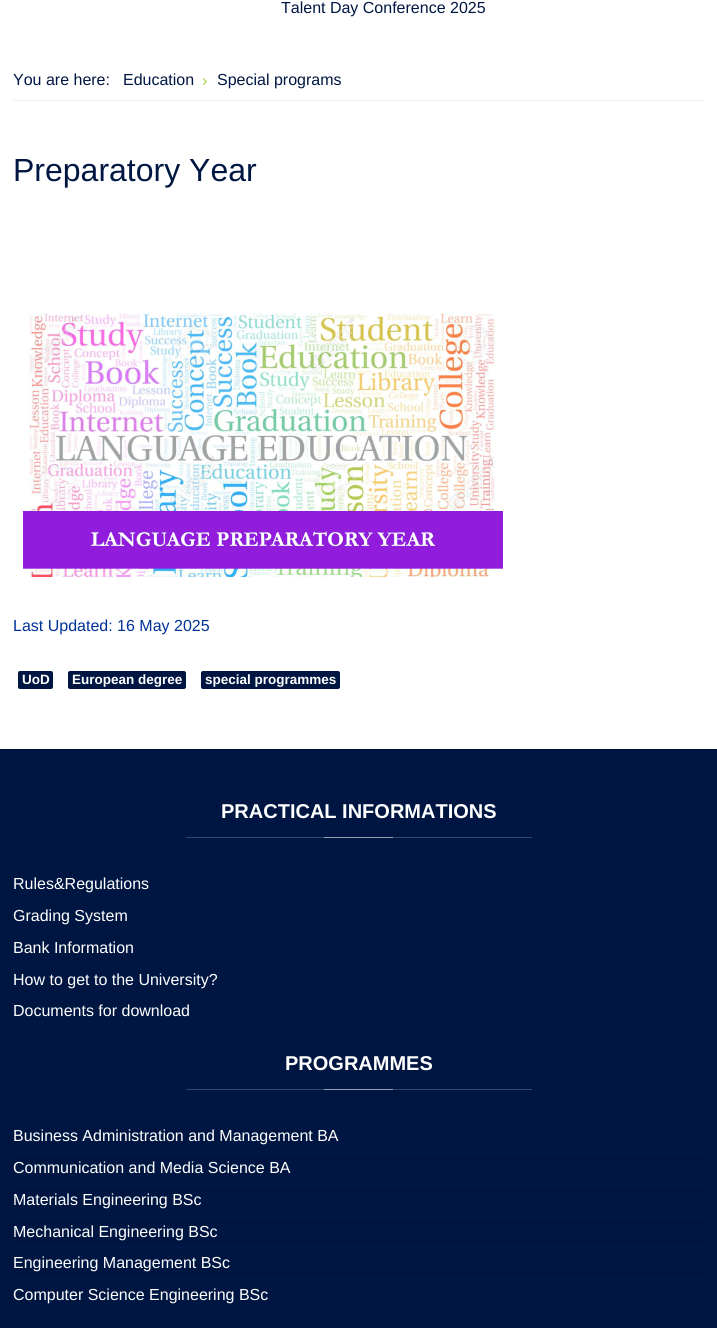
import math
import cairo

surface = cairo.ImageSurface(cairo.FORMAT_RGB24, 717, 1328)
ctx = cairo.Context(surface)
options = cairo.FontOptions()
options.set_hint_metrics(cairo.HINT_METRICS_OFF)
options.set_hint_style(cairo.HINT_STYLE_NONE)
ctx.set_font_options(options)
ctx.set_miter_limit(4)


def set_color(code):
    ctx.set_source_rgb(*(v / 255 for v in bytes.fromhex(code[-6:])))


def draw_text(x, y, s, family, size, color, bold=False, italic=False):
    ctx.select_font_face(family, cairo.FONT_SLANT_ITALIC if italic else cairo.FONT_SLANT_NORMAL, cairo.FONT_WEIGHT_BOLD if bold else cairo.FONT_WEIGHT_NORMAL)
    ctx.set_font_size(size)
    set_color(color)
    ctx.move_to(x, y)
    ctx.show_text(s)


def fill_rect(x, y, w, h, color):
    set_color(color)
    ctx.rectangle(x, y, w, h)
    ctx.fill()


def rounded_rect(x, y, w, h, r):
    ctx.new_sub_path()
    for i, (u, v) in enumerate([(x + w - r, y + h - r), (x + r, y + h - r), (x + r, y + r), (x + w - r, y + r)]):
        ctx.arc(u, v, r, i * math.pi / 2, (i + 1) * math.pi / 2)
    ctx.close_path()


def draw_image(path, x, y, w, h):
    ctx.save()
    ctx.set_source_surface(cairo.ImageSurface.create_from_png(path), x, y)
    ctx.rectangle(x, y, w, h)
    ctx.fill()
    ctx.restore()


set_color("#ffffff")
ctx.paint()
draw_text(281, 13, "Talent Day Conference 2025", "Liberation Sans", 16, "#001642")
fill_rect(13, 100, 692, 1, "#f0f0f0")
draw_text(13, 85, "You are here:", "Liberation Sans", 16, "#001642")
draw_text(123, 85, "Education", "Liberation Sans", 16, "#001642")
draw_image("assets/img1.png", 203, 78, 4, 7)
draw_text(217, 85, "Special programs", "Liberation Sans", 16, "#001642")
draw_text(13, 181, "Preparatory Year", "Liberation Sans", 32, "#001642")
draw_image("assets/img2.png", 23, 313, 480, 264)
draw_text(13, 631, "Last Updated: 16 May 2025", "Liberation Sans", 16, "#003295")
set_color("#001642")
rounded_rect(18, 671, 35, 18, 2)
ctx.fill()
draw_text(22, 684, "UoD", "Liberation Sans", 13.5, "#ffffff", bold=True)
set_color("#001642")
rounded_rect(68, 671, 118, 18, 2)
ctx.fill()
draw_text(72, 684, "European degree", "Liberation Sans", 13.5, "#ffffff", bold=True)
set_color("#001642")
rounded_rect(201, 671, 139, 18, 2)
ctx.fill()
draw_text(205, 684, "special programmes", "Liberation Sans", 13.5, "#ffffff", bold=True)
fill_rect(0, 749, 717, 579, "#001642")
fill_rect(186, 1089, 346, 1, "#334568")
fill_rect(186, 837, 346, 1, "#334568")
draw_text(221, 818, "PRACTICAL INFORMATIONS", "Liberation Sans", 20, "#ffffff", bold=True)
fill_rect(324, 837, 69, 1, "#99a2b4")
draw_text(13, 889, "Rules&Regulations", "Liberation Sans", 16, "#ffffff")
fill_rect(13, 900, 692, 1, "#001a4f")
draw_text(13, 921, "Grading System", "Liberation Sans", 16, "#ffffff")
fill_rect(13, 932, 692, 1, "#001a4f")
draw_text(13, 953, "Bank Information", "Liberation Sans", 16, "#ffffff")
fill_rect(13, 964, 692, 1, "#001a4f")
draw_text(13, 985, "How to get to the University?", "Liberation Sans", 16, "#ffffff")
fill_rect(13, 995, 692, 1, "#001a4f")
draw_text(13, 1016, "Documents for download", "Liberation Sans", 16, "#ffffff")
draw_text(285, 1070, "PROGRAMMES", "Liberation Sans", 20, "#ffffff", bold=True)
fill_rect(324, 1089, 69, 1, "#99a2b4")
draw_text(13, 1141, "Business Administration and Management BA", "Liberation Sans", 16, "#ffffff")
fill_rect(13, 1152, 692, 1, "#001a4f")
draw_text(13, 1173, "Communication and Media Science BA", "Liberation Sans", 16, "#ffffff")
fill_rect(13, 1184, 692, 1, "#001a4f")
draw_text(13, 1205, "Materials Engineering BSc", "Liberation Sans", 16, "#ffffff")
fill_rect(13, 1216, 692, 1, "#001a4f")
draw_text(13, 1237, "Mechanical Engineering BSc", "Liberation Sans", 16, "#ffffff")
fill_rect(13, 1247, 692, 1, "#001a4f")
draw_text(13, 1268, "Engineering Management BSc", "Liberation Sans", 16, "#ffffff")
fill_rect(13, 1279, 692, 1, "#001a4f")
draw_text(13, 1300, "Computer Science Engineering BSc", "Liberation Sans", 16, "#ffffff")
surface.write_to_png("output.png")
